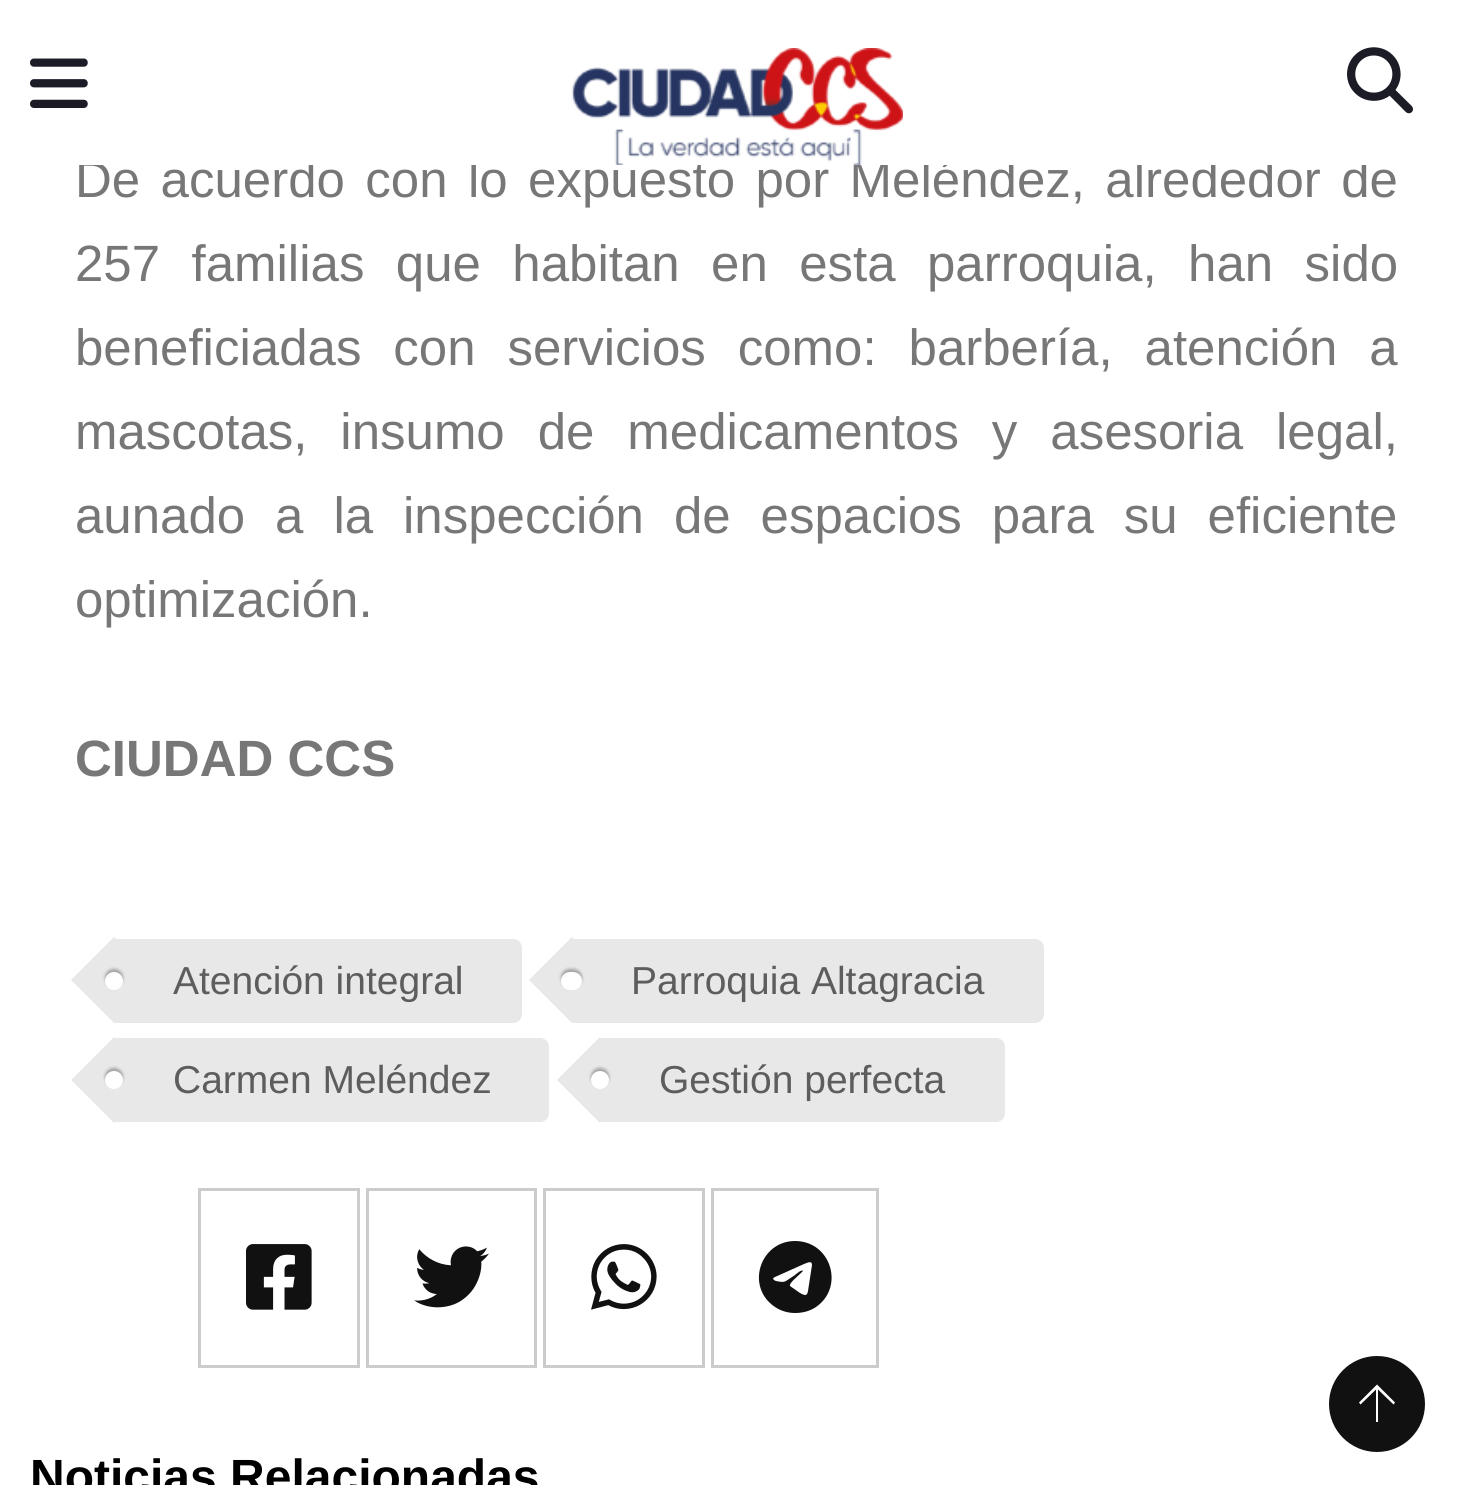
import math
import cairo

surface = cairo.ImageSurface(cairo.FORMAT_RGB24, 1471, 1485)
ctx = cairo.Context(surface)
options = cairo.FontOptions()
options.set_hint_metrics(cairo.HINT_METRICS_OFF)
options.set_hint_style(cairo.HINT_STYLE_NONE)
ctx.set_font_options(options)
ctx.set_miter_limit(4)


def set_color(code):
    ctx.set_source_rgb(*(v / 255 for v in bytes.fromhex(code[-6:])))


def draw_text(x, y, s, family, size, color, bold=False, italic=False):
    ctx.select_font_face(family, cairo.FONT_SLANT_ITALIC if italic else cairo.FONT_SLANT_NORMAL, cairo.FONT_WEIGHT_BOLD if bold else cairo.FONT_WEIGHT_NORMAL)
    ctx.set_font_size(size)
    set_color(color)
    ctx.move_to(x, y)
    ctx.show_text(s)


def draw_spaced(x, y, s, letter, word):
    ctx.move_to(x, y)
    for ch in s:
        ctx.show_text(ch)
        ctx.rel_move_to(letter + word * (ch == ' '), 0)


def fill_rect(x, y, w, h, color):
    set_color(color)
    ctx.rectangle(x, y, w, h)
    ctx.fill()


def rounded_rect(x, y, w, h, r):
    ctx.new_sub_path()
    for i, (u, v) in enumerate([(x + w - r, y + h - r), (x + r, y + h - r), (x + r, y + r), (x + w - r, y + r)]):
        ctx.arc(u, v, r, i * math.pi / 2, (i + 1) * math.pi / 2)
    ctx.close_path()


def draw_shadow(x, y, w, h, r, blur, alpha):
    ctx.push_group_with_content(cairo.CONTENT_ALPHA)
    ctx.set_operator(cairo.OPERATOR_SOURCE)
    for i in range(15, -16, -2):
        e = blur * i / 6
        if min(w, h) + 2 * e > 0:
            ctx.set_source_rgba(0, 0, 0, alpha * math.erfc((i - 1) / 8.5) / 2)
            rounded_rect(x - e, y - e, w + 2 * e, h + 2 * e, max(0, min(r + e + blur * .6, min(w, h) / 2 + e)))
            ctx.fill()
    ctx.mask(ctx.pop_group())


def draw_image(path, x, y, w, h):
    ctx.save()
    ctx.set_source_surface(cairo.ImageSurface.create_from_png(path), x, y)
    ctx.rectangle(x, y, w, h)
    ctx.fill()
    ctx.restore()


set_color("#ffffff")
ctx.paint()
ctx.select_font_face("Liberation Sans")
ctx.set_font_size(51)
set_color("#777777")
draw_spaced(75, 197, "De acuerdo con lo expuesto por Meléndez, alrededor de", 0, 6.25)
fill_rect(79, 159, 1288, 6, "#ffffff")
draw_image("assets/img1.png", 30, 58, 58, 50)
draw_image("assets/img2.png", 571, 48, 332, 117)
draw_image("assets/img3.png", 1347, 47, 66, 67)
set_color("#777777")
draw_spaced(75, 281, "257 familias que habitan en esta parroquia, han sido", 0, 17.25)
draw_spaced(75, 365, "beneficiadas con servicios como: barbería, atención a", 0, 17.75)
draw_spaced(75, 449, "mascotas, insumo de medicamentos y asesoria legal,", 0, 18.75)
draw_spaced(75, 533, "aunado a la inspección de espacios para su eficiente", 0, 15.75)
draw_text(75, 617, "optimización.", "Liberation Sans", 51, "#777777")
draw_text(75, 776, "CIUDAD CCS", "Liberation Sans", 51, "#777777", bold=True)
set_color("#e8e8e8")
ctx.new_path()
ctx.move_to(114, 939)
ctx.line_to(513, 939)
ctx.curve_to(518, 939, 522, 943, 522, 948)
ctx.line_to(522, 1014)
ctx.curve_to(522, 1019, 518, 1023, 513, 1023)
ctx.line_to(114, 1023)
ctx.close_path()
ctx.fill()
ctx.new_path()
ctx.move_to(71, 980)
ctx.line_to(114, 937)
ctx.line_to(157, 980)
ctx.line_to(114, 1023)
ctx.close_path()
ctx.fill()
set_color("#000000")
draw_shadow(105, 969, 18, 18, 9, 1.5, 0.3)
set_color("#ffffff")
ctx.arc(114, 981, 9, 0, 2 * math.pi)
ctx.fill()
draw_text(173, 994, "Atención integral", "Liberation Sans", 39, "#5d5d5d")
set_color("#e8e8e8")
ctx.new_path()
ctx.move_to(573, 939)
ctx.line_to(1035, 939)
ctx.curve_to(1040, 939, 1044, 943, 1044, 948)
ctx.line_to(1044, 1014)
ctx.curve_to(1044, 1019, 1040, 1023, 1035, 1023)
ctx.line_to(573, 1023)
ctx.close_path()
ctx.fill()
ctx.new_path()
ctx.move_to(529, 980)
ctx.line_to(572, 937)
ctx.line_to(615, 980)
ctx.line_to(572, 1023)
ctx.close_path()
ctx.fill()
set_color("#000000")
draw_shadow(561, 969, 21, 18, 9, 1.5, 0.3)
set_color("#ffffff")
rounded_rect(561, 972, 21, 18, 9)
ctx.fill()
draw_text(631, 994, "Parroquia Altagracia", "Liberation Sans", 39, "#5d5d5d")
set_color("#e8e8e8")
ctx.new_path()
ctx.move_to(114, 1038)
ctx.line_to(540, 1038)
ctx.curve_to(545, 1038, 549, 1042, 549, 1047)
ctx.line_to(549, 1113)
ctx.curve_to(549, 1118, 545, 1122, 540, 1122)
ctx.line_to(114, 1122)
ctx.close_path()
ctx.fill()
ctx.new_path()
ctx.move_to(71, 1080)
ctx.line_to(114, 1037)
ctx.line_to(157, 1080)
ctx.line_to(114, 1123)
ctx.close_path()
ctx.fill()
set_color("#000000")
draw_shadow(105, 1068, 18, 18, 9, 1.5, 0.3)
set_color("#ffffff")
ctx.arc(114, 1080, 9, 0, 2 * math.pi)
ctx.fill()
draw_text(173, 1093, "Carmen Meléndez", "Liberation Sans", 39, "#5d5d5d")
set_color("#e8e8e8")
ctx.new_path()
ctx.move_to(600, 1038)
ctx.line_to(996, 1038)
ctx.curve_to(1001, 1038, 1005, 1042, 1005, 1047)
ctx.line_to(1005, 1113)
ctx.curve_to(1005, 1118, 1001, 1122, 996, 1122)
ctx.line_to(600, 1122)
ctx.close_path()
ctx.fill()
ctx.new_path()
ctx.move_to(557, 1080)
ctx.line_to(600, 1037)
ctx.line_to(643, 1080)
ctx.line_to(600, 1123)
ctx.close_path()
ctx.fill()
set_color("#000000")
draw_shadow(591, 1068, 18, 18, 9, 1.5, 0.3)
set_color("#ffffff")
ctx.arc(600, 1080, 9, 0, 2 * math.pi)
ctx.fill()
draw_text(659, 1093, "Gestión perfecta", "Liberation Sans", 39, "#5d5d5d")
ctx.rectangle(199.5, 1189.5, 159, 177)
set_color("#cccccc")
ctx.set_line_width(3)
ctx.stroke()
draw_image("assets/img4.png", 246, 1244, 66, 66)
ctx.rectangle(367.5, 1189.5, 168, 177)
ctx.stroke()
draw_image("assets/img5.png", 414, 1246, 75, 62)
ctx.rectangle(544.5, 1189.5, 159, 177)
ctx.stroke()
draw_image("assets/img6.png", 591, 1244, 66, 66)
ctx.rectangle(712.5, 1189.5, 165, 177)
ctx.stroke()
set_color("#111111")
ctx.new_path()
ctx.move_to(795, 1241)
ctx.curve_to(760, 1241, 745, 1287, 775, 1307)
ctx.curve_to(781, 1311, 788, 1313, 795, 1313)
ctx.curve_to(803, 1313, 810, 1311, 816, 1307)
ctx.curve_to(845, 1287, 831, 1241, 795, 1241)
ctx.close_path()
ctx.move_to(812, 1265)
ctx.line_to(808, 1291)
ctx.curve_to(807, 1297, 804, 1295, 800, 1293)
ctx.line_to(790, 1286)
ctx.curve_to(789, 1283, 797, 1277, 801, 1273)
ctx.line_to(803, 1271)
ctx.curve_to(802, 1269, 796, 1274, 795, 1275)
ctx.curve_to(784, 1282, 786, 1283, 776, 1281)
ctx.curve_to(773, 1280, 772, 1278, 775, 1277)
ctx.line_to(804, 1264)
ctx.curve_to(807, 1263, 812, 1260, 812, 1265)
ctx.close_path()
ctx.fill()
draw_text(30, 1493, "Noticias Relacionadas", "Liberation Sans", 48, "#000000", bold=True)
set_color("#111111")
ctx.new_path()
ctx.arc(1377, 1404, 49.5, 0, 2 * math.pi)
ctx.fill_preserve()
set_color("#ffffff")
ctx.stroke()
ctx.new_path()
ctx.move_to(1393.5, 1404.5)
ctx.line_to(1378, 1389.5)
ctx.line_to(1378, 1422)
ctx.line_to(1376, 1422)
ctx.line_to(1376, 1389.5)
ctx.line_to(1360.5, 1404.5)
ctx.line_to(1359, 1402.5)
ctx.line_to(1377, 1384.5)
ctx.line_to(1395, 1402.5)
ctx.close_path()
ctx.fill()
surface.write_to_png("output.png")
